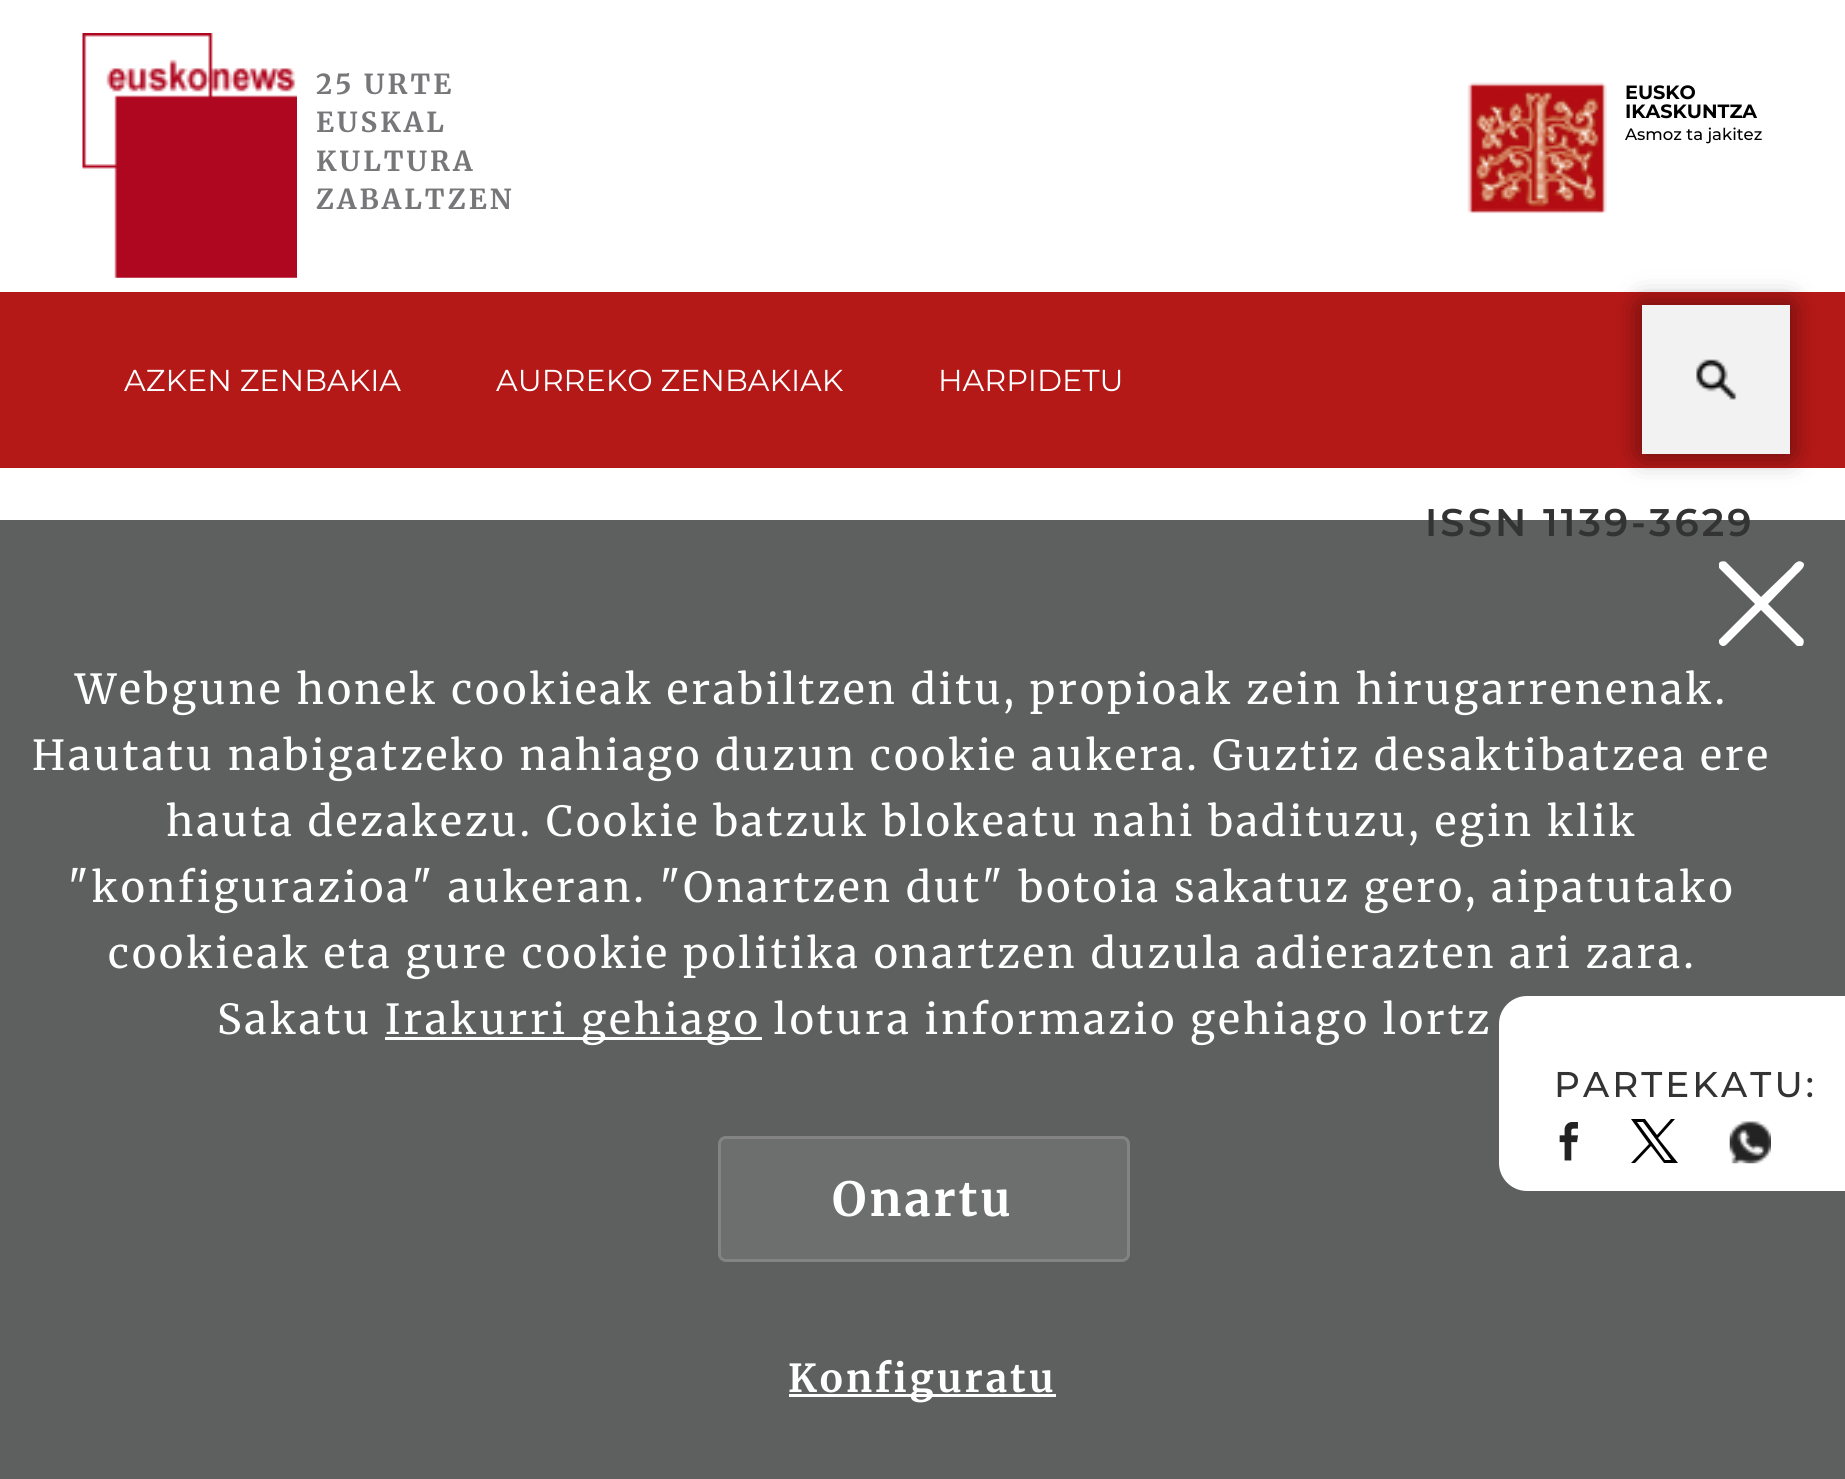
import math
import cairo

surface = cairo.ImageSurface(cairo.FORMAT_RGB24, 1845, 1479)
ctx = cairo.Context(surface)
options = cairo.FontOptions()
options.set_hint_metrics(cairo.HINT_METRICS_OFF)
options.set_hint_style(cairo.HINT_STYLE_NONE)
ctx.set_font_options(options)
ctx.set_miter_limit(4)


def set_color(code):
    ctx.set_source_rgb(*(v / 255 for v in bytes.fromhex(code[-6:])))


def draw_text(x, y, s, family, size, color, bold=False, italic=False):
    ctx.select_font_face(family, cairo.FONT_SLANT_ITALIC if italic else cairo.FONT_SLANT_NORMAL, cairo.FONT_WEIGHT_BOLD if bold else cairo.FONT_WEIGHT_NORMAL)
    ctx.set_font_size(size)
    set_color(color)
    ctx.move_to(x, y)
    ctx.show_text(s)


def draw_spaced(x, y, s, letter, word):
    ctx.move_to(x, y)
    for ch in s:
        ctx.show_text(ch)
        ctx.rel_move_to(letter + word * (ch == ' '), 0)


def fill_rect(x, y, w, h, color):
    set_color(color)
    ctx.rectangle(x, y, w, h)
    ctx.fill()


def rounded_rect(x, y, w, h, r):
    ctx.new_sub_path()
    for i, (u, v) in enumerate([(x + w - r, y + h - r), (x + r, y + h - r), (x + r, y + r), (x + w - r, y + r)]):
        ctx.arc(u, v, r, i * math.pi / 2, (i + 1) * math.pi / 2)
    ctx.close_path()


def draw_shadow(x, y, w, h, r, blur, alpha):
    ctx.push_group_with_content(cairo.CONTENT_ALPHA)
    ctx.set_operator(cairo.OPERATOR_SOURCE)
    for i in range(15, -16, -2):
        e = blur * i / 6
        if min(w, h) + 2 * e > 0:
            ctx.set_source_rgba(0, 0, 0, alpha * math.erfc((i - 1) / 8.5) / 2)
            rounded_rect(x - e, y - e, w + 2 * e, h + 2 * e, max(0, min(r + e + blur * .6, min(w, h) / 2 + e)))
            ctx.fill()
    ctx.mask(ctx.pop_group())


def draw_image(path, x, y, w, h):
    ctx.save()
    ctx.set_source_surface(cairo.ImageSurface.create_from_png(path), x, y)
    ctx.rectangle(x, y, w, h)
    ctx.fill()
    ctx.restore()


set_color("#ffffff")
ctx.paint()
draw_image("assets/img1.png", 82, 33, 215, 245)
ctx.select_font_face("Merriweather", cairo.FONT_SLANT_NORMAL, cairo.FONT_WEIGHT_BOLD)
ctx.set_font_size(27.5)
set_color("#77777a")
draw_spaced(316, 94, "25 URTE", 3.08, 0)
draw_spaced(316, 132, "EUSKAL", 3.08, 0)
draw_spaced(316, 171, "KULTURA", 3.08, 0)
draw_spaced(316, 209, "ZABALTZEN", 3.08, 0)
draw_image("assets/img2.png", 1467, 82, 140, 132)
draw_text(1625, 99, "EUSKO", "Montserrat", 19.25, "#000000", bold=True)
draw_text(1625, 118, "IKASKUNTZA", "Montserrat", 19.25, "#000000", bold=True)
draw_text(1625, 140, "Asmoz ta jakitez", "Montserrat Medium", 16.5, "#000000")
fill_rect(0, 292, 1845, 176, "#b51917")
draw_text(124, 391, "AZKEN ZENBAKIA", "Montserrat", 30.25, "#ffffff")
draw_text(496, 391, "AURREKO ZENBAKIAK", "Montserrat", 30.25, "#ffffff")
draw_text(938, 391, "HARPIDETU", "Montserrat", 30.25, "#ffffff")
set_color("#000000")
draw_shadow(1642, 305, 148, 149, 0, 14, 0.5)
fill_rect(1642, 305, 148, 149, "#f2f2f2")
draw_image("assets/img3.png", 1696, 359, 41, 41)
fill_rect(0, 520, 1845, 959, "#5e5f5f")
ctx.select_font_face("Montserrat SemiBold")
ctx.set_font_size(38.5)
set_color("#333333")
draw_spaced(1425, 536, "ISSN 1139-3629", 3.08, 0)
set_color("#ffffff")
rounded_rect(1499, 996, 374, 195, 28)
ctx.fill()
ctx.select_font_face("Montserrat Medium")
ctx.set_font_size(35.75)
set_color("#333333")
draw_spaced(1554, 1097, "PARTEKATU:", 3.08, 0)
draw_image("assets/img4.png", 1559, 1122, 19, 39)
set_color("#000000")
ctx.new_path()
ctx.move_to(1631, 1119)
ctx.line_to(1649, 1144)
ctx.line_to(1631, 1163)
ctx.line_to(1635, 1163)
ctx.line_to(1651, 1146)
ctx.line_to(1664, 1163)
ctx.line_to(1678, 1163)
ctx.line_to(1658, 1138)
ctx.line_to(1675, 1119)
ctx.line_to(1671, 1119)
ctx.line_to(1657, 1135)
ctx.line_to(1645, 1119)
ctx.close_path()
ctx.move_to(1637, 1122)
ctx.line_to(1643, 1122)
ctx.line_to(1671, 1160)
ctx.line_to(1665, 1160)
ctx.close_path()
ctx.fill()
draw_image("assets/img5.png", 1729, 1121, 42, 43)
ctx.save()
ctx.rectangle(1719, 561, 85, 85)
ctx.clip()
set_color("#ffffff")
ctx.set_fill_rule(cairo.FILL_RULE_EVEN_ODD)
ctx.new_path()
ctx.move_to(1768, 604)
ctx.line_to(1797, 574)
ctx.curve_to(1799, 572, 1808, 565, 1802, 562)
ctx.curve_to(1797, 559, 1793, 566, 1791, 568)
ctx.line_to(1761, 597)
ctx.line_to(1726, 562)
ctx.curve_to(1725, 561, 1722, 561, 1720, 562)
ctx.curve_to(1718, 564, 1718, 567, 1720, 569)
ctx.line_to(1755, 604)
ctx.line_to(1719, 640)
ctx.curve_to(1718, 644, 1722, 648, 1726, 645)
ctx.line_to(1761, 610)
ctx.line_to(1796, 645)
ctx.curve_to(1798, 647, 1801, 647, 1803, 645)
ctx.curve_to(1804, 643, 1804, 640, 1803, 639)
ctx.close_path()
ctx.fill()
ctx.restore()
ctx.select_font_face("Merriweather")
ctx.set_font_size(41.25)
set_color("#ffffff")
draw_spaced(75, 704, "Webgune honek cookieak erabiltzen ditu, propioak zein hirugarrenenak.", 3.08, 0)
draw_spaced(32, 770, "Hautatu nabigatzeko nahiago duzun cookie aukera. Guztiz desaktibatzea ere", 3.08, 0)
draw_spaced(166, 836, "hauta dezakezu. Cookie batzuk blokeatu nahi badituzu, egin klik", 3.08, 0)
draw_spaced(68, 902, "\"konfigurazioa\" aukeran. \"Onartzen dut\" botoia sakatuz gero, aipatutako", 3.08, 0)
draw_spaced(108, 968, "cookieak eta gure cookie politika onartzen duzula adierazten ari zara.", 3.08, 0)
draw_spaced(217, 1034, "Sakatu", 3.08, 0)
fill_rect(385, 1037, 377, 3, "#ffffff")
draw_spaced(385, 1034, "Irakurri gehiago lotura informazio gehiago lortz", 3.08, 0)
set_color("#6d6e6e")
rounded_rect(719.5, 1137.5, 409, 123, 6.5)
ctx.fill_preserve()
set_color("#828382")
ctx.set_line_width(3)
ctx.stroke()
ctx.select_font_face("Merriweather", cairo.FONT_SLANT_NORMAL, cairo.FONT_WEIGHT_BOLD)
ctx.set_font_size(47)
set_color("#ffffff")
draw_spaced(832, 1216, "Onartu", 3.08, 0)
fill_rect(789, 1394, 267, 3, "#ffffff")
ctx.set_font_size(38.5)
draw_spaced(788, 1392, "Konfiguratu", 3.08, 0)
surface.write_to_png("output.png")
